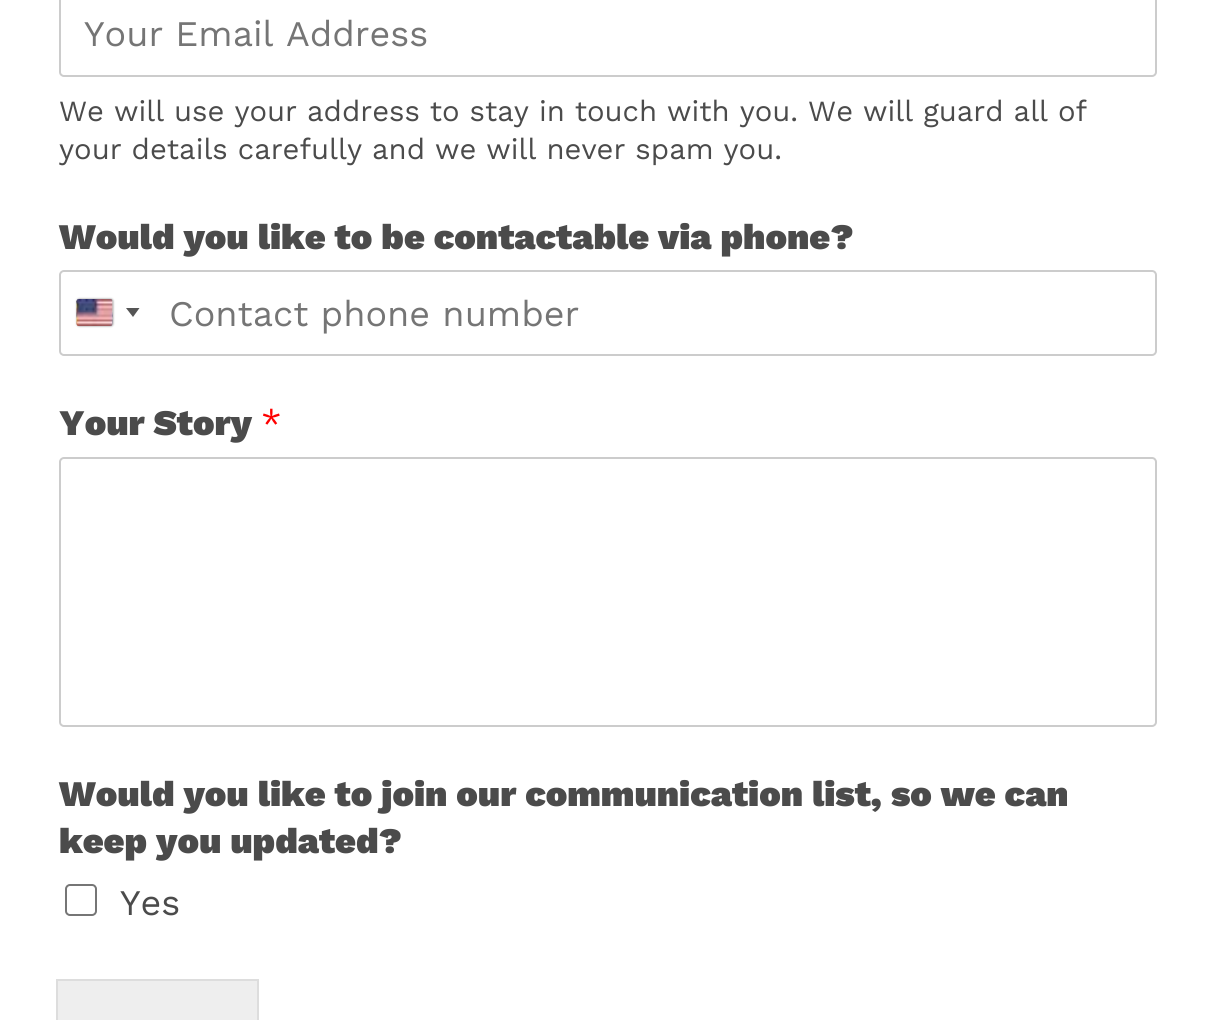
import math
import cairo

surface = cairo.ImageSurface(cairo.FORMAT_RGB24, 1214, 1020)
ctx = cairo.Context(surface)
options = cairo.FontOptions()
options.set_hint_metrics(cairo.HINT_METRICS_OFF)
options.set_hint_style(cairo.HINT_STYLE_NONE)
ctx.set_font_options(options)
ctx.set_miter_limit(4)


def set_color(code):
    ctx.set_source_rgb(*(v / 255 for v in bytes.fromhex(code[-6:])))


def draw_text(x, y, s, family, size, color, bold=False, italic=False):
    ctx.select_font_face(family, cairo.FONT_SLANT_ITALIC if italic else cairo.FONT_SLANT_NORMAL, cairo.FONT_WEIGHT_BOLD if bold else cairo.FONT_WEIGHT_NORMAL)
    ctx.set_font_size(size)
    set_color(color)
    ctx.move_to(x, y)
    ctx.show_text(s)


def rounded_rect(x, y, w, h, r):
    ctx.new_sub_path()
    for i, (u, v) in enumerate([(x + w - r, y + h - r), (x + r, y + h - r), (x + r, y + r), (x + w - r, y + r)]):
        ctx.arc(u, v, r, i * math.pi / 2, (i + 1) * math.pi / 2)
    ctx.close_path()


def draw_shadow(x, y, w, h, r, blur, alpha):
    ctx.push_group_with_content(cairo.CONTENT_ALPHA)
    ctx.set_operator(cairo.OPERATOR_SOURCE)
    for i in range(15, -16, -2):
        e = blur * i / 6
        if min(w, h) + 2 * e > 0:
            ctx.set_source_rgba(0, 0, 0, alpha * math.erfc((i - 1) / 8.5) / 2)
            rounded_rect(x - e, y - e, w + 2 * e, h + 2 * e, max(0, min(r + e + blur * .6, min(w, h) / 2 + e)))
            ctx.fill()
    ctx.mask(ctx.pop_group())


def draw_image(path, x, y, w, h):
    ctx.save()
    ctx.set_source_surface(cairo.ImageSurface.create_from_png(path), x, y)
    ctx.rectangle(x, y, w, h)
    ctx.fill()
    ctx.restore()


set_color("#ffffff")
ctx.paint()
rounded_rect(60, -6, 1096, 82, 4)
set_color("#cccccc")
ctx.stroke()
draw_text(84, 46, "Your Email Address", "Work Sans", 36, "#757575")
draw_text(59, 121, "We will use your address to stay in touch with you. We will guard all of", "Work Sans", 29.25, "#4b4b4b")
draw_text(59, 159, "your details carefully and we will never spam you.", "Work Sans", 29.25, "#4b4b4b")
draw_text(59, 249, "Would you like to be contactable via phone?", "Work Sans Black", 36, "#4b4b4b")
rounded_rect(60, 271, 1096, 84, 4)
set_color("#cccccc")
ctx.stroke()
set_color("#888888")
draw_shadow(77, 299, 36, 27, 2, 1, 1)
draw_image("assets/img1.png", 76, 299, 37, 27)
set_color("#555555")
ctx.new_path()
ctx.move_to(126, 308)
ctx.line_to(139.5, 308)
ctx.line_to(133, 317)
ctx.close_path()
ctx.fill()
draw_text(169, 326, "Contact phone number", "Work Sans", 36, "#757575")
draw_text(59, 435, "Your Story", "Work Sans Black", 36, "#4b4b4b")
draw_text(261, 435, "*", "Work Sans", 36, "#ff0000")
rounded_rect(60, 458, 1096, 268, 4)
set_color("#cccccc")
ctx.stroke()
draw_text(59, 806, "Would you like to join our communication list, so we can", "Work Sans Black", 36, "#4b4b4b")
draw_text(59, 853, "keep you updated?", "Work Sans Black", 36, "#4b4b4b")
rounded_rect(66, 885, 30, 30, 4)
set_color("#767676")
ctx.stroke()
draw_text(120, 915, "Yes", "Work Sans", 36, "#4b4b4b")
set_color("#eeeeee")
ctx.rectangle(57, 980, 201, 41)
ctx.fill_preserve()
set_color("#dddddd")
ctx.stroke()
surface.write_to_png("output.png")
